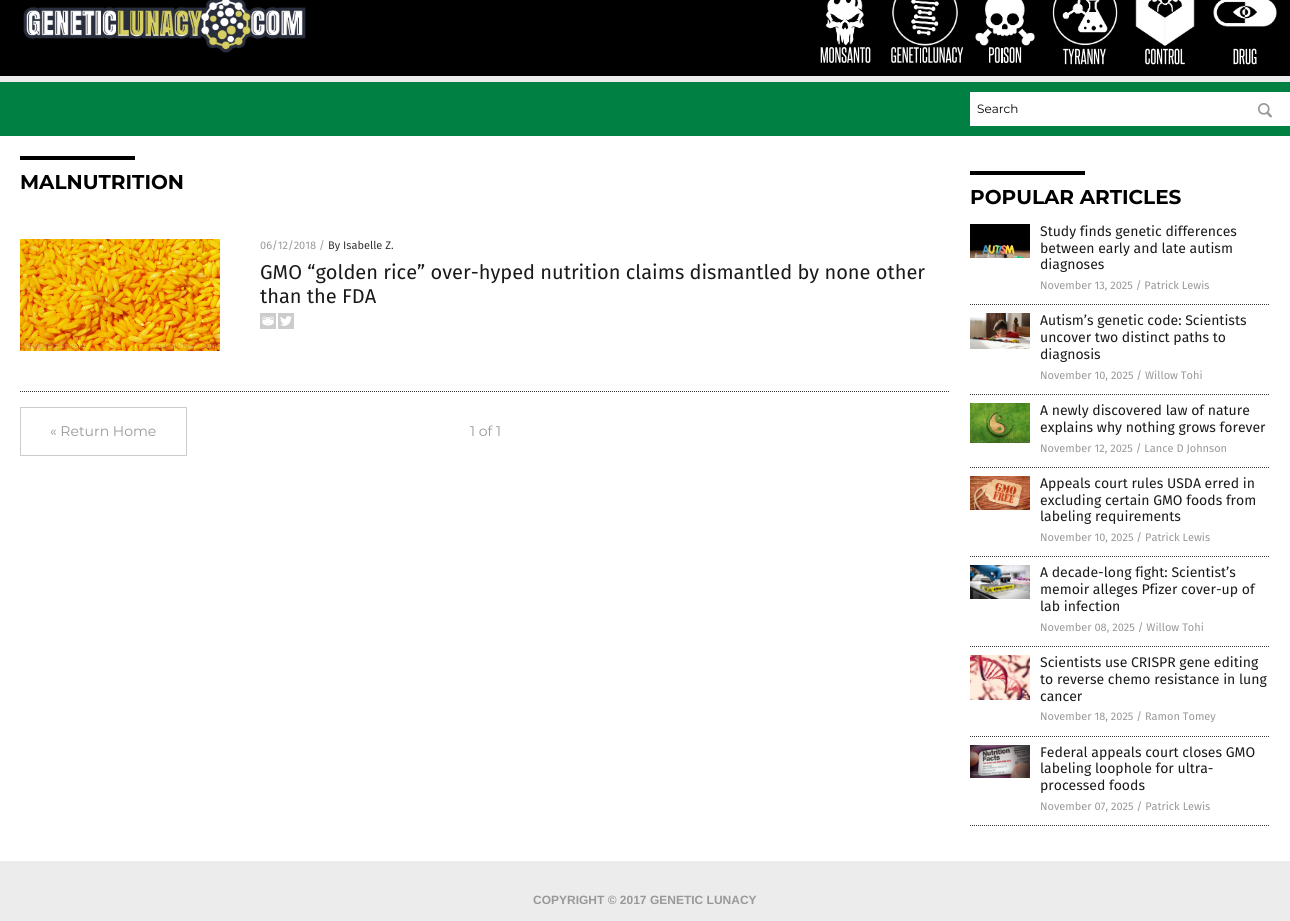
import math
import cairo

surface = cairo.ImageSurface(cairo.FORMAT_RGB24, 1290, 921)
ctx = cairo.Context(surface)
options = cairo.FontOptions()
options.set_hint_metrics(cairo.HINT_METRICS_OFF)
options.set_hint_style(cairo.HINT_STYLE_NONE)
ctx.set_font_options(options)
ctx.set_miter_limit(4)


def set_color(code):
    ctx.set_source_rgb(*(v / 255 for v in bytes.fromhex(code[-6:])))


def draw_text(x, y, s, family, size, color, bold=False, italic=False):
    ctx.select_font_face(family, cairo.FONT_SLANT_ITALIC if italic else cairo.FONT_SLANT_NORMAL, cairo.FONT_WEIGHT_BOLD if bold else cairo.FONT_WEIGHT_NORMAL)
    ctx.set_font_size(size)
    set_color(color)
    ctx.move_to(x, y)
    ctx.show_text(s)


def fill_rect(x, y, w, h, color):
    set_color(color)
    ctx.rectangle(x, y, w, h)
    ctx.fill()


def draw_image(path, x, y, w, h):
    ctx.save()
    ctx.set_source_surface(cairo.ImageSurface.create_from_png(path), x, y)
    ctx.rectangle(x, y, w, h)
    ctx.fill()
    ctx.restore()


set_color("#ececec")
ctx.paint()
fill_rect(0, 82, 1290, 54, "#008143")
fill_rect(0, 0, 1290, 76, "#000000")
draw_image("assets/img1.png", 23, 0, 283, 53)
draw_image("assets/img2.png", 825, 0, 40, 46)
draw_image("assets/img3.png", 820, 47, 51, 16)
draw_image("assets/img4.png", 892, 0, 66, 46)
draw_image("assets/img5.png", 891, 47, 73, 16)
draw_image("assets/img6.png", 975, 0, 60, 46)
draw_image("assets/img7.png", 989, 47, 33, 16)
draw_image("assets/img8.png", 1052, 0, 66, 46)
draw_image("assets/img9.png", 1063, 48, 43, 17)
draw_image("assets/img10.png", 1135, 0, 60, 47)
draw_image("assets/img11.png", 1145, 48, 40, 17)
draw_image("assets/img12.png", 1213, 0, 64, 27)
draw_image("assets/img13.png", 1233, 48, 24, 17)
fill_rect(970, 92, 320, 34, "#ffffff")
draw_text(977, 113, "Search", "Montserrat", 12, "#000000")
draw_image("assets/img14.png", 1258, 103, 14, 15)
fill_rect(0, 136, 1290, 725, "#ffffff")
fill_rect(20, 156, 115, 4, "#000000")
draw_text(20, 189, "MALNUTRITION", "Montserrat", 20, "#000000", bold=True)
ctx.new_path()
ctx.move_to(20, 391.5)
ctx.line_to(950, 391.5)
set_color("#343434")
ctx.set_line_width(1)
ctx.set_dash([1, 1])
ctx.stroke()
draw_image("assets/img15.png", 20, 239, 200, 112)
draw_text(260, 249, "06/12/2018 /", "Fira Sans", 11, "#999999")
draw_text(328, 249, "By Isabelle Z.", "Fira Sans", 11, "#333333")
draw_text(260, 279, "GMO “golden rice” over-hyped nutrition claims dismantled by none other", "Fira Sans", 20, "#1a1a1a")
draw_text(260, 303, "than the FDA", "Fira Sans", 20, "#1a1a1a")
draw_image("assets/img16.png", 260, 313, 16, 16)
draw_image("assets/img17.png", 278, 313, 16, 16)
ctx.rectangle(20.5, 407.5, 166, 48)
set_color("#cccccc")
ctx.set_dash([])
ctx.stroke()
draw_text(50, 436, "« Return Home", "Montserrat", 14, "#999999")
draw_text(470, 436, "1 of 1", "Montserrat", 14, "#999999")
fill_rect(970, 171, 115, 4, "#000000")
draw_text(970, 204, "POPULAR ARTICLES", "Montserrat", 20, "#000000", bold=True)
ctx.new_path()
ctx.move_to(970, 304.5)
ctx.line_to(1270, 304.5)
set_color("#343434")
ctx.set_dash([1, 1])
ctx.stroke()
draw_image("assets/img18.png", 970, 224, 60, 34)
draw_text(1040, 236, "Study finds genetic differences", "Fira Sans", 14, "#1a1a1a")
draw_text(1040, 253, "between early and late autism", "Fira Sans", 14, "#1a1a1a")
draw_text(1040, 269, "diagnoses", "Fira Sans", 14, "#1a1a1a")
draw_text(1040, 289, "November 13, 2025 / Patrick Lewis", "Fira Sans", 11, "#999999")
ctx.new_path()
ctx.move_to(970, 394.5)
ctx.line_to(1270, 394.5)
set_color("#343434")
ctx.stroke()
draw_image("assets/img19.png", 970, 313, 60, 36)
draw_text(1040, 325, "Autism’s genetic code: Scientists", "Fira Sans", 14, "#1a1a1a")
draw_text(1040, 342, "uncover two distinct paths to", "Fira Sans", 14, "#1a1a1a")
draw_text(1040, 359, "diagnosis", "Fira Sans", 14, "#1a1a1a")
draw_text(1040, 379, "November 10, 2025 / Willow Tohi", "Fira Sans", 11, "#999999")
ctx.new_path()
ctx.move_to(970, 467.5)
ctx.line_to(1270, 467.5)
set_color("#343434")
ctx.stroke()
draw_image("assets/img20.png", 970, 403, 60, 40)
draw_text(1040, 415, "A newly discovered law of nature", "Fira Sans", 14, "#1a1a1a")
draw_text(1040, 432, "explains why nothing grows forever", "Fira Sans", 14, "#1a1a1a")
draw_text(1040, 452, "November 12, 2025 / Lance D Johnson", "Fira Sans", 11, "#999999")
ctx.new_path()
ctx.move_to(970, 556.5)
ctx.line_to(1270, 556.5)
set_color("#343434")
ctx.stroke()
draw_image("assets/img21.png", 970, 476, 60, 34)
draw_text(1040, 488, "Appeals court rules USDA erred in", "Fira Sans", 14, "#1a1a1a")
draw_text(1040, 505, "excluding certain GMO foods from", "Fira Sans", 14, "#1a1a1a")
draw_text(1040, 521, "labeling requirements", "Fira Sans", 14, "#1a1a1a")
draw_text(1040, 541, "November 10, 2025 / Patrick Lewis", "Fira Sans", 11, "#999999")
ctx.new_path()
ctx.move_to(970, 646.5)
ctx.line_to(1270, 646.5)
set_color("#343434")
ctx.stroke()
draw_image("assets/img22.png", 970, 565, 60, 34)
draw_text(1040, 577, "A decade-long fight: Scientist’s", "Fira Sans", 14, "#1a1a1a")
draw_text(1040, 594, "memoir alleges Pfizer cover-up of", "Fira Sans", 14, "#1a1a1a")
draw_text(1040, 611, "lab infection", "Fira Sans", 14, "#1a1a1a")
draw_text(1040, 631, "November 08, 2025 / Willow Tohi", "Fira Sans", 11, "#999999")
ctx.new_path()
ctx.move_to(970, 736.5)
ctx.line_to(1270, 736.5)
set_color("#343434")
ctx.stroke()
draw_image("assets/img23.png", 970, 655, 60, 45)
draw_text(1040, 667, "Scientists use CRISPR gene editing", "Fira Sans", 14, "#1a1a1a")
draw_text(1040, 684, "to reverse chemo resistance in lung", "Fira Sans", 14, "#1a1a1a")
draw_text(1040, 701, "cancer", "Fira Sans", 14, "#1a1a1a")
draw_text(1040, 720, "November 18, 2025 / Ramon Tomey", "Fira Sans", 11, "#999999")
ctx.new_path()
ctx.move_to(970, 825.5)
ctx.line_to(1270, 825.5)
set_color("#343434")
ctx.stroke()
draw_image("assets/img24.png", 970, 745, 60, 33)
draw_text(1040, 757, "Federal appeals court closes GMO", "Fira Sans", 14, "#1a1a1a")
draw_text(1040, 773, "labeling loophole for ultra-", "Fira Sans", 14, "#1a1a1a")
draw_text(1040, 790, "processed foods", "Fira Sans", 14, "#1a1a1a")
draw_text(1040, 810, "November 07, 2025 / Patrick Lewis", "Fira Sans", 11, "#999999")
draw_text(533, 904, "COPYRIGHT © 2017 GENETIC LUNACY", "Liberation Sans", 12, "#999999", bold=True)
surface.write_to_png("output.png")
